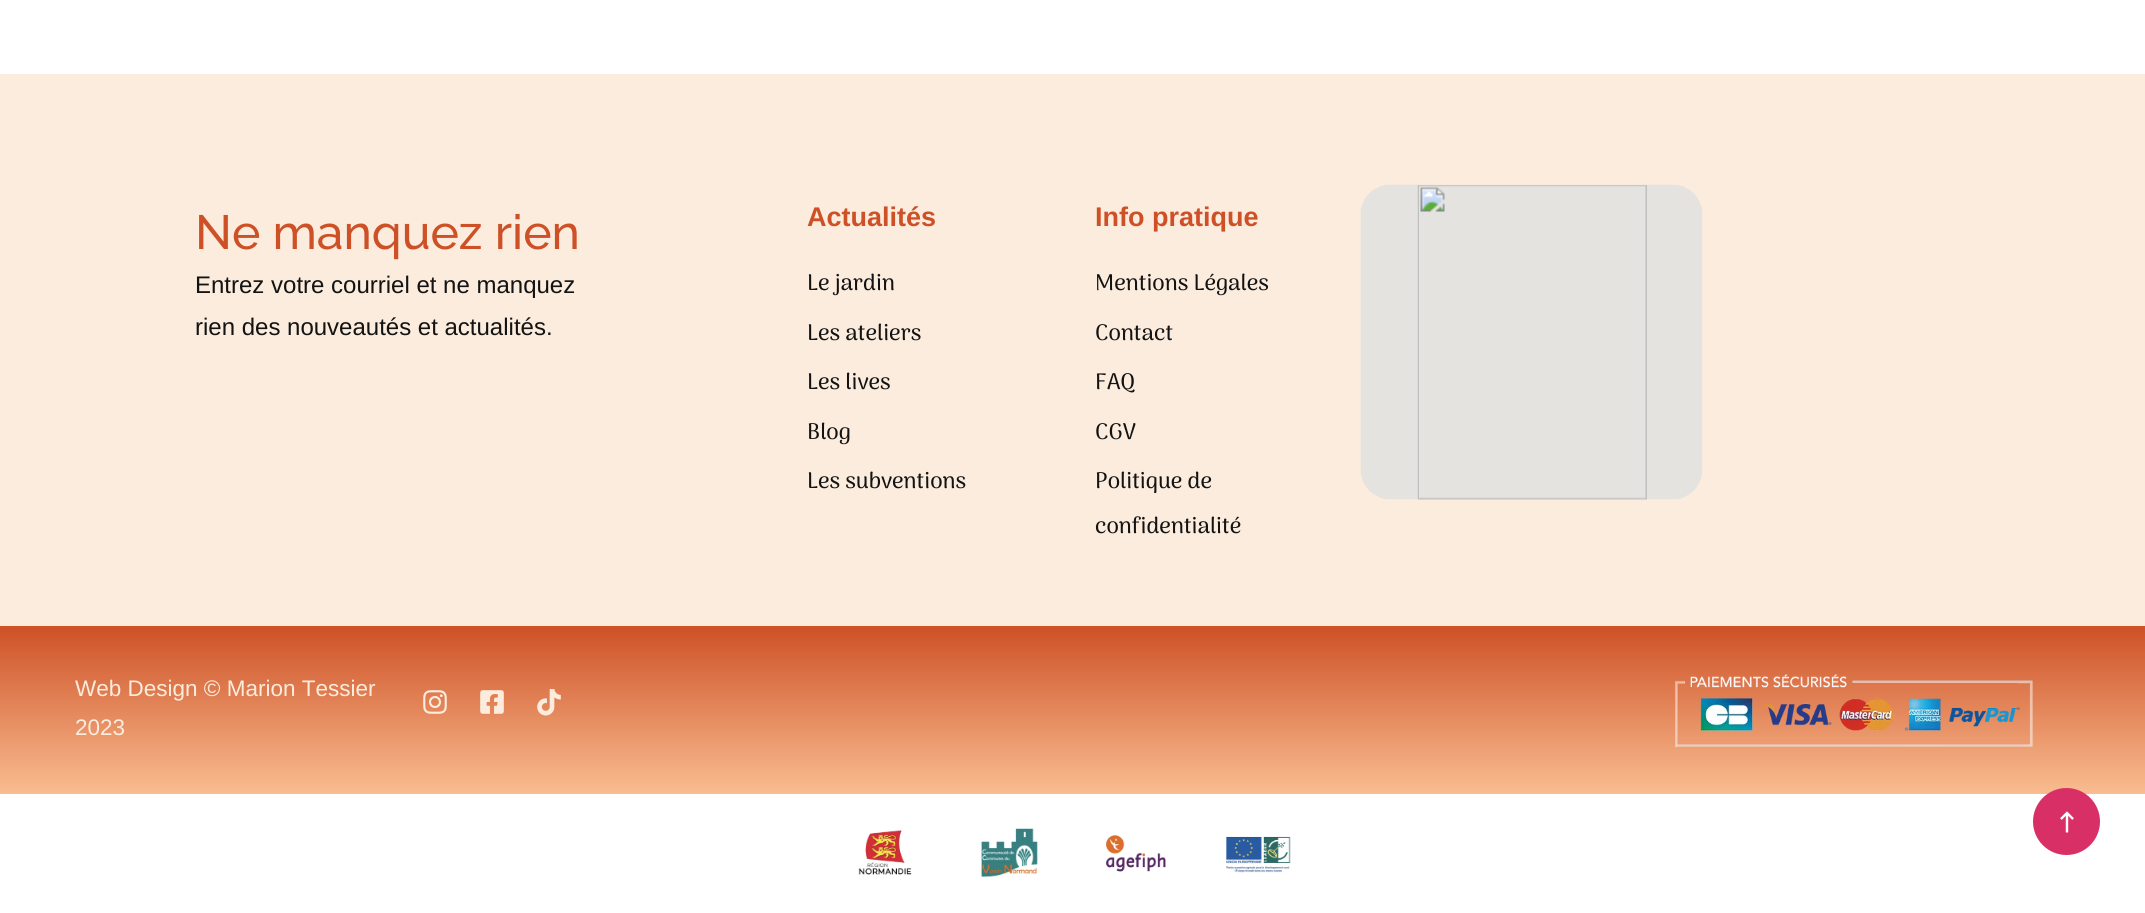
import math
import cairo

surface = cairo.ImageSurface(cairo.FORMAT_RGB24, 2145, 913)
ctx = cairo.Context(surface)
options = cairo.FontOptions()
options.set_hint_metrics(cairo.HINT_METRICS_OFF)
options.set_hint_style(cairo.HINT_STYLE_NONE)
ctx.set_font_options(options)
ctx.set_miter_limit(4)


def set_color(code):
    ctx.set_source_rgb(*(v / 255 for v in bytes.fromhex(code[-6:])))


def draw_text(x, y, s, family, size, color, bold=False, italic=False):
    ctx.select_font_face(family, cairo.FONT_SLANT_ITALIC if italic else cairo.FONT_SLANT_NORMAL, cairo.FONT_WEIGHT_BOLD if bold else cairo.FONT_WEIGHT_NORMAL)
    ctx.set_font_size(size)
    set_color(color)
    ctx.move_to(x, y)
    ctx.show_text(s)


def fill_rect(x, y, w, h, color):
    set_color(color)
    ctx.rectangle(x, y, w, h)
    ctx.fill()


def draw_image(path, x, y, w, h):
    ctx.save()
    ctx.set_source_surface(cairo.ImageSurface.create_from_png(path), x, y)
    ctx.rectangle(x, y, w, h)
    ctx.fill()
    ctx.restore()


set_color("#ffffff")
ctx.paint()
fill_rect(0, 74, 2145, 552, "#fbecdd")
draw_text(195, 249, "Ne manquez rien", "Raleway Medium", 48, "#ce5026")
draw_text(195, 293, "Entrez votre courriel et ne manquez", "Liberation Sans", 24, "#131313")
draw_text(195, 335, "rien des nouveautés et actualités.", "Liberation Sans", 24, "#131313")
draw_text(807, 226, "Actualités", "Liberation Sans", 27, "#ce5026", bold=True)
draw_text(807, 290, "Le jardin", "Arima Medium", 22.5, "#131313")
draw_text(807, 340, "Les ateliers", "Arima Medium", 22.5, "#131313")
draw_text(807, 389, "Les lives", "Arima Medium", 22.5, "#131313")
draw_text(807, 439, "Blog", "Arima Medium", 22.5, "#131313")
draw_text(807, 488, "Les subventions", "Arima Medium", 22.5, "#131313")
draw_text(1095, 226, "Info pratique", "Liberation Sans", 27, "#ce5026", bold=True)
draw_text(1095, 290, "Mentions Légales", "Arima Medium", 22.5, "#131313")
draw_text(1095, 340, "Contact", "Arima Medium", 22.5, "#131313")
draw_text(1095, 389, "FAQ", "Arima Medium", 22.5, "#131313")
draw_text(1095, 439, "CGV", "Arima Medium", 22.5, "#131313")
draw_text(1095, 488, "Politique de", "Arima Medium", 22.5, "#131313")
draw_text(1095, 533, "confidentialité", "Arima Medium", 22.5, "#131313")
draw_image("assets/img1.png", 1360, 184, 343, 316)
gradient = cairo.LinearGradient(1073, 625, 1073, 794)
gradient.add_color_stop_rgba(0, 0.808, 0.314, 0.149, 1)
gradient.add_color_stop_rgba(1, 0.976, 0.741, 0.565, 1)
ctx.set_source(gradient)
ctx.rectangle(0, 626, 2145, 168)
ctx.fill()
draw_text(75, 696, "Web Design © Marion Tessier", "Liberation Sans", 22.5, "#fbecdd")
draw_text(75, 735, "2023", "Liberation Sans", 22.5, "#fbecdd")
draw_image("assets/img2.png", 423, 690, 24, 24)
draw_image("assets/img3.png", 480, 690, 24, 24)
draw_image("assets/img4.png", 537, 689, 24, 27)
draw_image("assets/img5.png", 1675, 674, 358, 74)
draw_image("assets/img6.png", 858, 830, 54, 45)
draw_image("assets/img7.png", 981, 828, 57, 50)
draw_image("assets/img8.png", 1105, 835, 61, 37)
draw_image("assets/img9.png", 1226, 836, 65, 37)
set_color("#d83066")
ctx.arc(2066.5, 821.5, 32.5, 0, 2 * math.pi)
ctx.fill_preserve()
ctx.stroke()
draw_image("assets/img10.png", 2060, 811, 14, 22)
surface.write_to_png("output.png")
